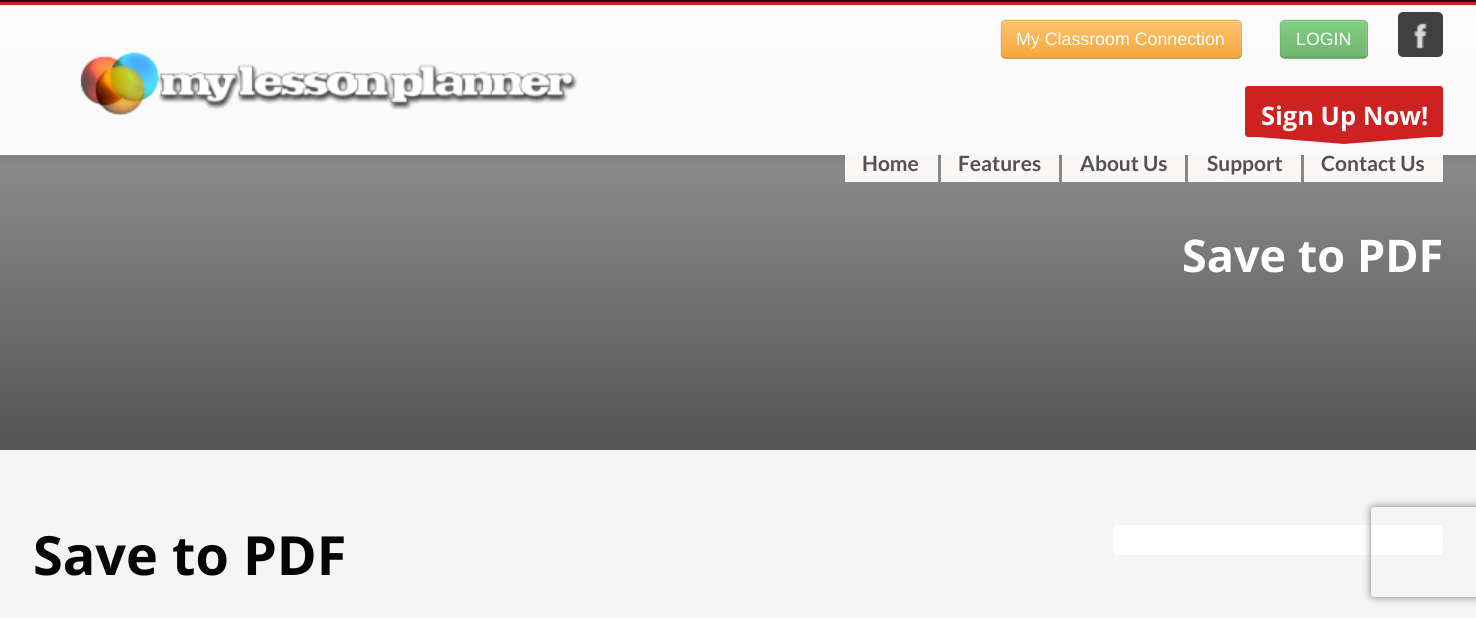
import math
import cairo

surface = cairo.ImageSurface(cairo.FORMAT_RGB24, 1476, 618)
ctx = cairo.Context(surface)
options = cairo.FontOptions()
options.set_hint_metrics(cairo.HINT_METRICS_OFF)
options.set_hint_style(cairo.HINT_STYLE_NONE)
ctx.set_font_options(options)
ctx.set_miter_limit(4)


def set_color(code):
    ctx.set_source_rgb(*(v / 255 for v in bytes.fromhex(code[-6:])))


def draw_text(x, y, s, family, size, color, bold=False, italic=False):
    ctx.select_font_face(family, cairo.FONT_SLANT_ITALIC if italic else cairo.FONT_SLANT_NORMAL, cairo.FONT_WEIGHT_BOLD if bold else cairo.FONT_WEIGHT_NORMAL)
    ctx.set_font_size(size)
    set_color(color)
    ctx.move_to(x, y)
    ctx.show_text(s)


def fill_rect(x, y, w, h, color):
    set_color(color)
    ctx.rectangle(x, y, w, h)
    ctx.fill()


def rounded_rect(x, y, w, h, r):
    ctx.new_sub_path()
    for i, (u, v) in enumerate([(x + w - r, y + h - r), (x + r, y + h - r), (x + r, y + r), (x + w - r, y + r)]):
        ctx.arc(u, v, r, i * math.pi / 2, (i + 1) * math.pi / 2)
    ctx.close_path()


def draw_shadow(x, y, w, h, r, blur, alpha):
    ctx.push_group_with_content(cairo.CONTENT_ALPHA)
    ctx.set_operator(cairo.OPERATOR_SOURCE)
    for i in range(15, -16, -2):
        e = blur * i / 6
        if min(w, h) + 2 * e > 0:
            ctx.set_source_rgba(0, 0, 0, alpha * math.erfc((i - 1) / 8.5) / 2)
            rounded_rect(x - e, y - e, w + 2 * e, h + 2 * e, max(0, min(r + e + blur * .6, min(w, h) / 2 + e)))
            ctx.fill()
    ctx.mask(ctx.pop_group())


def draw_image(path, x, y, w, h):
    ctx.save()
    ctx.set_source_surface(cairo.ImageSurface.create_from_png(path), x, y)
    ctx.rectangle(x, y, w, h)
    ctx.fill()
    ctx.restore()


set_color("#f5f5f5")
ctx.paint()
gradient = cairo.LinearGradient(738, 0, 738, 450)
gradient.add_color_stop_rgba(0, 0.663, 0.663, 0.663, 1)
gradient.add_color_stop_rgba(1, 0.329, 0.329, 0.329, 1)
ctx.set_source(gradient)
ctx.rectangle(0, 5, 1476, 445)
ctx.fill()
ctx.save()
ctx.set_fill_rule(cairo.FILL_RULE_EVEN_ODD)
ctx.new_path()
ctx.move_to(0, 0)
ctx.line_to(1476, 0)
ctx.line_to(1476, 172)
ctx.line_to(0, 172)
ctx.close_path()
ctx.move_to(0, 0)
ctx.line_to(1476, 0)
ctx.line_to(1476, 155)
ctx.line_to(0, 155)
ctx.close_path()
ctx.clip()
set_color("#000000")
draw_shadow(0, 5, 1476, 154, 0, 4, 0.1)
ctx.restore()
fill_rect(0, 0, 1476, 2, "#330809")
ctx.set_source_rgba(1, 1, 1, 0.95)
ctx.rectangle(0, 5, 1476, 150)
ctx.fill()
fill_rect(0, 2, 1476, 3, "#cd2122")
set_color("#fab85a")
rounded_rect(1001, 20, 241, 39, 5)
ctx.fill()
ctx.save()
rounded_rect(1001, 20, 241, 39, 5)
ctx.clip()
gradient = cairo.LinearGradient(1121, 21, 1121, 57)
gradient.add_color_stop_rgba(0, 0.984, 0.761, 0.447, 1)
gradient.add_color_stop_rgba(1, 0.973, 0.659, 0.216, 1)
ctx.set_source(gradient)
ctx.rectangle(1001, 21, 241, 36)
ctx.fill()
ctx.restore()
ctx.set_source_rgba(0.996, 0.996, 0.996, 0.2)
ctx.new_path()
ctx.move_to(1005, 22)
ctx.line_to(1238, 22)
ctx.curve_to(1241, 22, 1240, 35, 1240, 36)
ctx.line_to(1240, 56)
ctx.curve_to(1241, 56, 1241, 55, 1241, 54)
ctx.line_to(1241, 24)
ctx.curve_to(1241, 22, 1240, 21, 1238, 21)
ctx.line_to(1005, 21)
ctx.curve_to(1003, 21, 1002, 22, 1002, 24)
ctx.line_to(1002, 26)
ctx.curve_to(1002, 24, 1003, 22, 1005, 22)
ctx.close_path()
ctx.fill()
ctx.new_path()
ctx.move_to(1240, 56.5)
ctx.curve_to(1239.5, 57.5, 1238.5, 58, 1237.5, 58)
ctx.line_to(1005, 58)
ctx.curve_to(1004, 58, 1003, 57.5, 1002.5, 56.5)
ctx.set_source_rgba(0.196, 0.196, 0.196, 0.25)
ctx.set_line_width(1.5)
ctx.stroke()
ctx.new_path()
ctx.move_to(1002.5, 56.5)
ctx.curve_to(1001.5, 56, 1001, 55, 1001, 54)
ctx.line_to(1001, 24)
ctx.curve_to(1001, 23, 1001.5, 22, 1002.5, 21.5)
ctx.curve_to(1003, 20.5, 1004, 20, 1005, 20)
ctx.line_to(1237.5, 20)
ctx.curve_to(1238.5, 20, 1239.5, 20.5, 1240, 21.5)
ctx.curve_to(1241, 22, 1241, 23, 1241, 24)
ctx.line_to(1241, 54)
ctx.curve_to(1241, 55, 1241, 56, 1240, 56.5)
ctx.set_source_rgba(0.196, 0.196, 0.196, 0.1)
ctx.stroke()
draw_text(1016, 45, "My Classroom Connection", "Liberation Sans", 17.8, "#ffffff")
set_color("#7bc47b")
rounded_rect(1280, 20, 88, 39, 5)
ctx.fill()
ctx.save()
rounded_rect(1280, 20, 88, 39, 5)
ctx.clip()
gradient = cairo.LinearGradient(1324, 21, 1324, 57)
gradient.add_color_stop_rgba(0, 0.502, 0.812, 0.502, 1)
gradient.add_color_stop_rgba(1, 0.451, 0.706, 0.451, 1)
ctx.set_source(gradient)
ctx.rectangle(1280, 21, 88, 36)
ctx.fill()
ctx.restore()
ctx.set_source_rgba(0.996, 0.996, 0.996, 0.2)
ctx.new_path()
ctx.move_to(1284, 22)
ctx.line_to(1351, 22)
ctx.curve_to(1369, 22, 1366, 20, 1366, 36)
ctx.line_to(1366, 56)
ctx.curve_to(1367, 56, 1367, 55, 1367, 54)
ctx.line_to(1367, 24)
ctx.curve_to(1367, 22, 1366, 21, 1364, 21)
ctx.line_to(1284, 21)
ctx.curve_to(1282, 21, 1281, 22, 1281, 24)
ctx.line_to(1281, 26)
ctx.curve_to(1281, 24, 1282, 22, 1284, 22)
ctx.close_path()
ctx.fill()
ctx.new_path()
ctx.move_to(1366, 56.5)
ctx.line_to(1364, 57.5)
ctx.line_to(1283.5, 57.5)
ctx.line_to(1281.5, 56.5)
ctx.set_source_rgba(0.196, 0.196, 0.196, 0.25)
ctx.stroke()
ctx.new_path()
ctx.move_to(1281.5, 56.5)
ctx.curve_to(1279.5, 55, 1280, 51, 1280, 49)
ctx.line_to(1280, 39)
ctx.curve_to(1280, 18, 1276.5, 20, 1297, 20)
ctx.line_to(1350, 20)
ctx.curve_to(1371, 20, 1367, 18, 1367, 39)
ctx.line_to(1367, 49)
ctx.curve_to(1367, 51, 1368, 55, 1366, 56.5)
ctx.set_source_rgba(0.196, 0.196, 0.196, 0.1)
ctx.stroke()
draw_text(1296, 45, "LOGIN", "Liberation Sans", 17.8, "#ffffff")
set_color("#404040")
rounded_rect(1398, 12, 45, 45, 5)
ctx.fill()
draw_image("assets/img1.png", 1414, 23, 13, 26)
draw_image("assets/img2.png", 79, 52, 499, 64)
set_color("#cd2122")
rounded_rect(1245, 86, 198, 51, 3)
ctx.fill()
draw_text(1261, 125, "Sign Up Now!", "Open Sans", 25.5, "#ffffff", bold=True)
ctx.save()
ctx.rectangle(1245, 137, 198, 7)
ctx.clip()
set_color("#cd2122")
ctx.set_fill_rule(cairo.FILL_RULE_EVEN_ODD)
ctx.new_path()
ctx.move_to(1442, 136)
ctx.line_to(1344, 144)
ctx.line_to(1245, 136)
ctx.close_path()
ctx.fill()
ctx.restore()
fill_rect(845, 155, 93, 27, "#f9f8f7")
draw_text(862, 171, "Home", "Lato", 21, "#535151", bold=True)
fill_rect(941, 155, 118, 27, "#f9f8f7")
draw_text(958, 171, "Features", "Lato", 21, "#535151", bold=True)
fill_rect(966, 177, 11, 2, "#fbfbfa")
fill_rect(1062, 155, 123, 27, "#f9f8f7")
draw_text(1080, 171, "About Us", "Lato", 21, "#535151", bold=True)
fill_rect(1188, 155, 113, 27, "#f9f8f7")
draw_text(1207, 171, "Support", "Lato", 21, "#535151", bold=True)
fill_rect(1214, 177, 10, 2, "#fbfbfa")
fill_rect(1304, 155, 139, 27, "#f9f8f7")
draw_text(1321, 171, "Contact Us", "Lato", 21, "#535151", bold=True)
draw_text(1182, 272, "Save to PDF", "Open Sans", 45, "#ffffff", bold=True)
draw_text(33, 575, "Save to PDF", "Open Sans", 54, "#050505", bold=True)
set_color("#ffffff")
rounded_rect(1113, 525, 330, 30, 5)
ctx.fill()
ctx.save()
ctx.set_fill_rule(cairo.FILL_RULE_EVEN_ODD)
ctx.new_path()
ctx.move_to(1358, 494)
ctx.line_to(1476, 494)
ctx.line_to(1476, 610)
ctx.line_to(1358, 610)
ctx.close_path()
ctx.move_to(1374, 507)
ctx.line_to(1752, 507)
ctx.curve_to(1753.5, 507, 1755, 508.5, 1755, 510)
ctx.line_to(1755, 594)
ctx.curve_to(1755, 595.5, 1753.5, 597, 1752, 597)
ctx.line_to(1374, 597)
ctx.curve_to(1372.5, 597, 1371, 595.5, 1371, 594)
ctx.line_to(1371, 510)
ctx.curve_to(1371, 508.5, 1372.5, 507, 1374, 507)
ctx.close_path()
ctx.clip()
set_color("#808080")
draw_shadow(1371, 507, 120, 90, 3, 4, 1)
ctx.restore()
surface.write_to_png("output.png")
